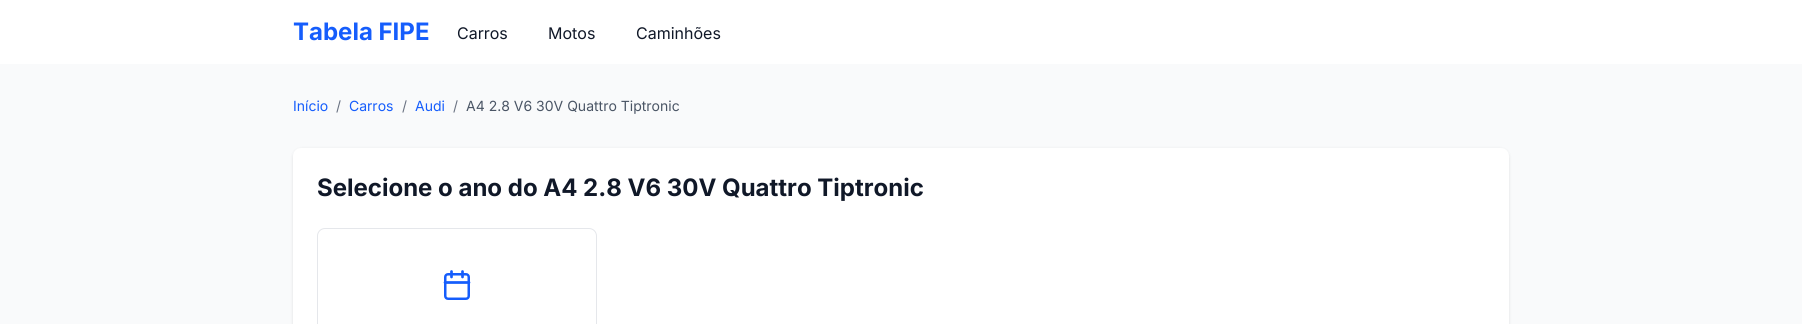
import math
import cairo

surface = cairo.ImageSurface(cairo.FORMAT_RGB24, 1802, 324)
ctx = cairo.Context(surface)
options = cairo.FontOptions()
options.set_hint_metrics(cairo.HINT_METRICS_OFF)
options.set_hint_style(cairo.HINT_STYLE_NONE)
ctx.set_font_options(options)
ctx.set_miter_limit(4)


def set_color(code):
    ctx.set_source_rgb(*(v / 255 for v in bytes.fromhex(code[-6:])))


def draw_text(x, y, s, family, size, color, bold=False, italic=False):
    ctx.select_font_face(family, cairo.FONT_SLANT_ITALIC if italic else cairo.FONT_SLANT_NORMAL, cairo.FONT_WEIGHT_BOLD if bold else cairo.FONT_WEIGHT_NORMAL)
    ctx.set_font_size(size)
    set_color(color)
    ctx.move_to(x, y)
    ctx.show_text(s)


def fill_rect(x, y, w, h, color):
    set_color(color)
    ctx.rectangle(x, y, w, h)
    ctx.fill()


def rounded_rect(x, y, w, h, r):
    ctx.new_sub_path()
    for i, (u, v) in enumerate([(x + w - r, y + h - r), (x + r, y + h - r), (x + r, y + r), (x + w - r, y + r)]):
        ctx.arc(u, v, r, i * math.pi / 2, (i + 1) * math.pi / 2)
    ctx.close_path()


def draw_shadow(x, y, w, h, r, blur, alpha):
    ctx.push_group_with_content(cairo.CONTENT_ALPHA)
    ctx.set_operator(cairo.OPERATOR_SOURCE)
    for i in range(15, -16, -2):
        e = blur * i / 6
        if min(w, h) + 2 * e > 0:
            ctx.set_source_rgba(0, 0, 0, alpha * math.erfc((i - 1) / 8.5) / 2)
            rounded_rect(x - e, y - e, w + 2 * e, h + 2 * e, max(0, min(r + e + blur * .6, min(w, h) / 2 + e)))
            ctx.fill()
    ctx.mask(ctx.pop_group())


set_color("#ffffff")
ctx.paint()
draw_text(293, 40, "Tabela FIPE", "Inter", 24, "#155dfc", bold=True)
draw_text(457, 39, "Carros", "Inter", 16, "#101828")
draw_text(548, 39, "Motos", "Inter", 16, "#101828")
draw_text(636, 39, "Caminhões", "Inter", 16, "#101828")
fill_rect(0, 64, 1802, 260, "#f9fafb")
draw_text(293, 111, "Início", "Inter", 14, "#155dfc")
draw_text(336, 111, "/", "Inter", 14, "#6a7282")
draw_text(349, 111, "Carros", "Inter", 14, "#155dfc")
draw_text(402, 111, "/", "Inter", 14, "#6a7282")
draw_text(415, 111, "Audi", "Inter", 14, "#155dfc")
draw_text(453, 111, "/", "Inter", 14, "#6a7282")
draw_text(466, 111, "A4 2.8 V6 30V Quattro Tiptronic", "Inter", 14, "#4a5565")
set_color("#000000")
draw_shadow(293, 149, 1216, 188, 8, 1.5, 0.1)
set_color("#ffffff")
rounded_rect(293, 148, 1216, 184, 8)
ctx.fill()
draw_text(317, 196, "Selecione o ano do A4 2.8 V6 30V Quattro Tiptronic", "Inter", 24, "#101828", bold=True)
rounded_rect(317.5, 228.5, 279, 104, 7.5)
set_color("#e5e7eb")
ctx.set_line_width(1)
ctx.stroke()
ctx.new_path()
ctx.move_to(451.5, 271.5)
ctx.line_to(451.5, 277)
ctx.move_to(462.5, 271.5)
ctx.line_to(462.5, 277)
set_color("#155dfc")
ctx.set_line_width(2.7)
ctx.set_line_cap(cairo.LINE_CAP_ROUND)
ctx.set_line_join(cairo.LINE_JOIN_ROUND)
ctx.stroke()
rounded_rect(445.25, 274.25, 23.5, 24.5, 2.75)
ctx.set_line_width(2.5)
ctx.set_line_cap(cairo.LINE_CAP_BUTT)
ctx.set_line_join(cairo.LINE_JOIN_MITER)
ctx.stroke()
ctx.new_path()
ctx.move_to(445, 282.5)
ctx.line_to(469, 282.5)
ctx.set_line_width(2.7)
ctx.set_line_cap(cairo.LINE_CAP_ROUND)
ctx.set_line_join(cairo.LINE_JOIN_ROUND)
ctx.stroke()
surface.write_to_png("output.png")
